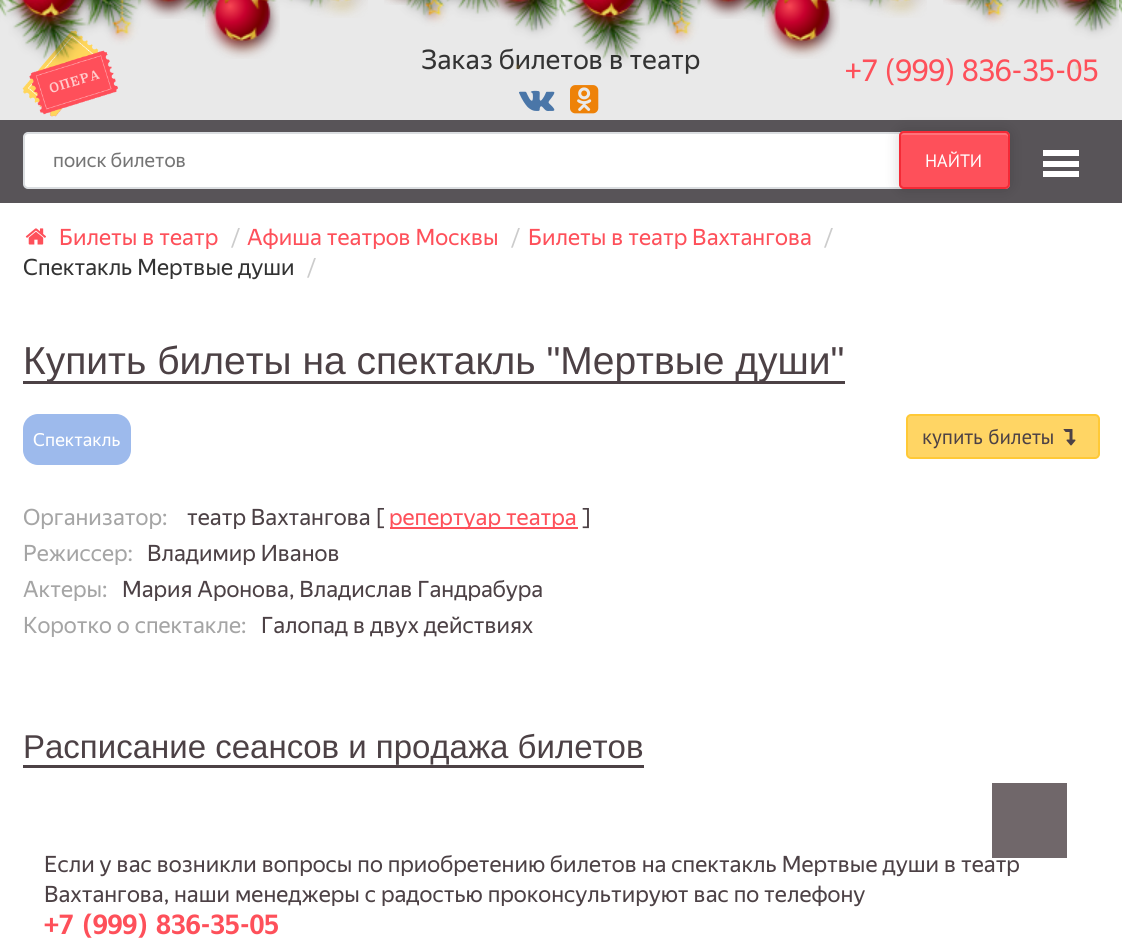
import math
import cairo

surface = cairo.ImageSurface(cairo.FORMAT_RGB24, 1122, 940)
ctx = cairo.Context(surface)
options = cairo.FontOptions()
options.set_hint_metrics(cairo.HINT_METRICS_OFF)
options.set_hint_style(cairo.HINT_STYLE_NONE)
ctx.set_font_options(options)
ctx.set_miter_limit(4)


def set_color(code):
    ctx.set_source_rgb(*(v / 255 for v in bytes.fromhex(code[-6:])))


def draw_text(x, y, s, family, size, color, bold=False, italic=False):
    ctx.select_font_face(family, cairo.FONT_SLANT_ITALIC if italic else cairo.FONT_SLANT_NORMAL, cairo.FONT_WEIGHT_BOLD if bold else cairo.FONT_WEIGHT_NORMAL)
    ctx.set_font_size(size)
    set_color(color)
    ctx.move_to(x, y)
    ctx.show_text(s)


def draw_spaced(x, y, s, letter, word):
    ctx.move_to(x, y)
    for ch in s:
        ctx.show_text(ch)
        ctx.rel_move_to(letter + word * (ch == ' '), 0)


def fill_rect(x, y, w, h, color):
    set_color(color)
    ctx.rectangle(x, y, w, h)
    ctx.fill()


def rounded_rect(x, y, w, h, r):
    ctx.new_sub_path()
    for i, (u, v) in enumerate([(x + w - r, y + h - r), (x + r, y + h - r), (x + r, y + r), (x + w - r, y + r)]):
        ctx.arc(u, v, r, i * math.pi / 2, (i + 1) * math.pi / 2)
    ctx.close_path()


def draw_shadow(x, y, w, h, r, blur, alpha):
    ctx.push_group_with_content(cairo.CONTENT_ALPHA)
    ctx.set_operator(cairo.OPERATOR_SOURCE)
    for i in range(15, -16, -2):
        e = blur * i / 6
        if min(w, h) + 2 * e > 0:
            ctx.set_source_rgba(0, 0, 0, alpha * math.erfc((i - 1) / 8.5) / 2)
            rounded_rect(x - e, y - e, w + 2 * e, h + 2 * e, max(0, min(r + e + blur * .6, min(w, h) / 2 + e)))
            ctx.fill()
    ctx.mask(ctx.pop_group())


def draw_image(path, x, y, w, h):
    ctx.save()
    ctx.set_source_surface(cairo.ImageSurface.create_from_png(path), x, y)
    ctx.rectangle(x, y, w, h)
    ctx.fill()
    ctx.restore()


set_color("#ffffff")
ctx.paint()
fill_rect(0, 0, 1122, 120, "#e9e9e9")
draw_image("assets/img19.png", 22, 30, 96, 87)
draw_text(421, 69, "Заказ билетов в театр", "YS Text", 27, "#333333")
draw_image("assets/img1.png", 0, 0, 1120, 70)
draw_image("assets/img3.png", 10, 0, 77, 33)
draw_image("assets/img2.png", 0, 0, 21, 17)
draw_image("assets/img4.png", 140, 0, 57, 19)
draw_image("assets/img5.png", 205, 0, 75, 59)
draw_image("assets/img6.png", 317, 0, 51, 18)
draw_image("assets/img7.png", 384, 0, 36, 5)
draw_image("assets/img8.png", 490, 0, 57, 20)
draw_image("assets/img9.png", 550, 0, 8, 14)
draw_image("assets/img11.png", 569, 0, 78, 33)
draw_image("assets/img10.png", 559, 0, 22, 17)
draw_image("assets/img12.png", 699, 0, 58, 19)
draw_image("assets/img13.png", 764, 0, 76, 59)
draw_image("assets/img14.png", 877, 0, 50, 18)
draw_image("assets/img15.png", 943, 0, 37, 5)
draw_image("assets/img16.png", 1049, 0, 57, 20)
draw_image("assets/img17.png", 1110, 0, 8, 14)
draw_image("assets/img18.png", 1119, 0, 3, 14)
draw_image("assets/img20.png", 519, 90, 36, 21)
draw_image("assets/img21.png", 570, 85, 29, 29)
draw_text(845, 81, "+7 (999) 836-35-05", "YS Text", 30, "#fe505a")
fill_rect(0, 120, 1122, 83, "#585458")
fill_rect(1043, 161, 36, 6, "#ffffff")
fill_rect(1043, 150, 36, 6, "#ffffff")
fill_rect(1043, 171, 36, 6, "#ffffff")
rounded_rect(24, 133, 985, 55, 4)
ctx.fill_preserve()
set_color("#dbdee1")
ctx.stroke()
draw_text(53, 167, "поиск билетов", "YS Text", 19.5, "#757575")
set_color("#000000")
draw_shadow(899, 131, 111, 58, 5, 7.5, 0.16)
set_color("#fe505a")
rounded_rect(899, 131, 111, 58, 5)
ctx.fill()
set_color("#fe737b")
ctx.new_path()
ctx.move_to(903, 135)
ctx.line_to(1005, 135)
ctx.curve_to(1007, 135, 1008, 136, 1008, 138)
ctx.line_to(1008, 135)
ctx.curve_to(1008, 133, 1007, 132, 1005, 132)
ctx.line_to(903, 132)
ctx.curve_to(901, 132, 900, 133, 900, 135)
ctx.line_to(900, 138)
ctx.curve_to(900, 136, 901, 135, 903, 135)
ctx.close_path()
ctx.fill()
rounded_rect(900, 132, 109, 56, 4)
set_color("#f42a36")
ctx.stroke()
draw_text(925, 167, "НАЙТИ", "PT Sans", 18, "#ffffff")
draw_image("assets/img22.png", 25, 228, 21, 17)
draw_text(59, 245, "Билеты в театр", "YS Text", 22.5, "#fe505a")
draw_text(231, 245, "/", "YS Text", 22.5, "#cccccc")
draw_text(247, 245, "Афиша театров Москвы", "YS Text", 22.5, "#fe505a")
draw_text(511, 245, "/", "YS Text", 22.5, "#cccccc")
draw_text(528, 245, "Билеты в театр Вахтангова", "YS Text", 22.5, "#fe505a")
draw_text(824, 245, "/", "YS Text", 22.5, "#cccccc")
draw_text(23, 275, "Спектакль Мертвые души", "YS Text", 22.5, "#333333")
draw_text(307, 275, "/", "YS Text", 22.5, "#cccccc")
fill_rect(23, 381, 822, 3, "#4c4145")
draw_text(23, 374, "Купить билеты на спектакль \"Мертвые души\"", "Liberation Sans", 39, "#4c4145")
set_color("#9dbaec")
rounded_rect(23, 414, 108, 51, 15)
ctx.fill()
draw_text(33, 446, "Спектакль", "YS Text", 18, "#ffffff")
set_color("#ffd564")
rounded_rect(907, 415, 192, 43, 4)
ctx.fill_preserve()
set_color("#ffc936")
ctx.stroke()
draw_text(922, 444, "купить билеты", "PT Sans", 21, "#4c4145")
draw_image("assets/img23.png", 1063, 429, 13, 17)
draw_text(23, 525, "Организатор:", "YS Text", 22.5, "#a5a5a5")
draw_text(187, 525, "театр Вахтангова [", "YS Text", 22.5, "#4c4145")
fill_rect(390, 527, 188, 2, "#fe505a")
draw_text(389, 525, "репертуар театра", "YS Text", 22.5, "#fe505a")
draw_text(582, 525, "]", "YS Text", 22.5, "#4c4145")
draw_text(23, 561, "Режиссер:", "YS Text", 22.5, "#a5a5a5")
draw_text(147, 561, "Владимир Иванов", "YS Text", 22.5, "#4c4145")
draw_text(23, 597, "Актеры:", "YS Text", 22.5, "#a5a5a5")
draw_text(122, 597, "Мария Аронова, Владислав Гандрабура", "YS Text", 22.5, "#4c4145")
draw_text(23, 633, "Коротко о спектакле:", "YS Text", 22.5, "#a5a5a5")
draw_text(261, 633, "Галопад в двух действиях", "YS Text", 22.5, "#4c4145")
fill_rect(23, 765, 621, 3, "#4c4145")
draw_text(23, 758, "Расписание сеансов и продажа билетов", "Liberation Sans", 33, "#4c4145")
draw_text(44, 872, "Если у вас возникли вопросы по приобретению билетов на спектакль Мертвые души в театр", "YS Text", 22.5, "#4c4145")
draw_text(44, 902, "Вахтангова, наши менеджеры с радостью проконсультируют вас по телефону", "YS Text", 22.5, "#4c4145")
ctx.select_font_face("YS Text", cairo.FONT_SLANT_NORMAL, cairo.FONT_WEIGHT_BOLD)
ctx.set_font_size(27)
set_color("#fe505a")
draw_spaced(44, 934, "+7 (999) 836-35-05", 0, 2)
fill_rect(992, 783, 75, 75, "#70676a")
surface.write_to_png("output.png")
